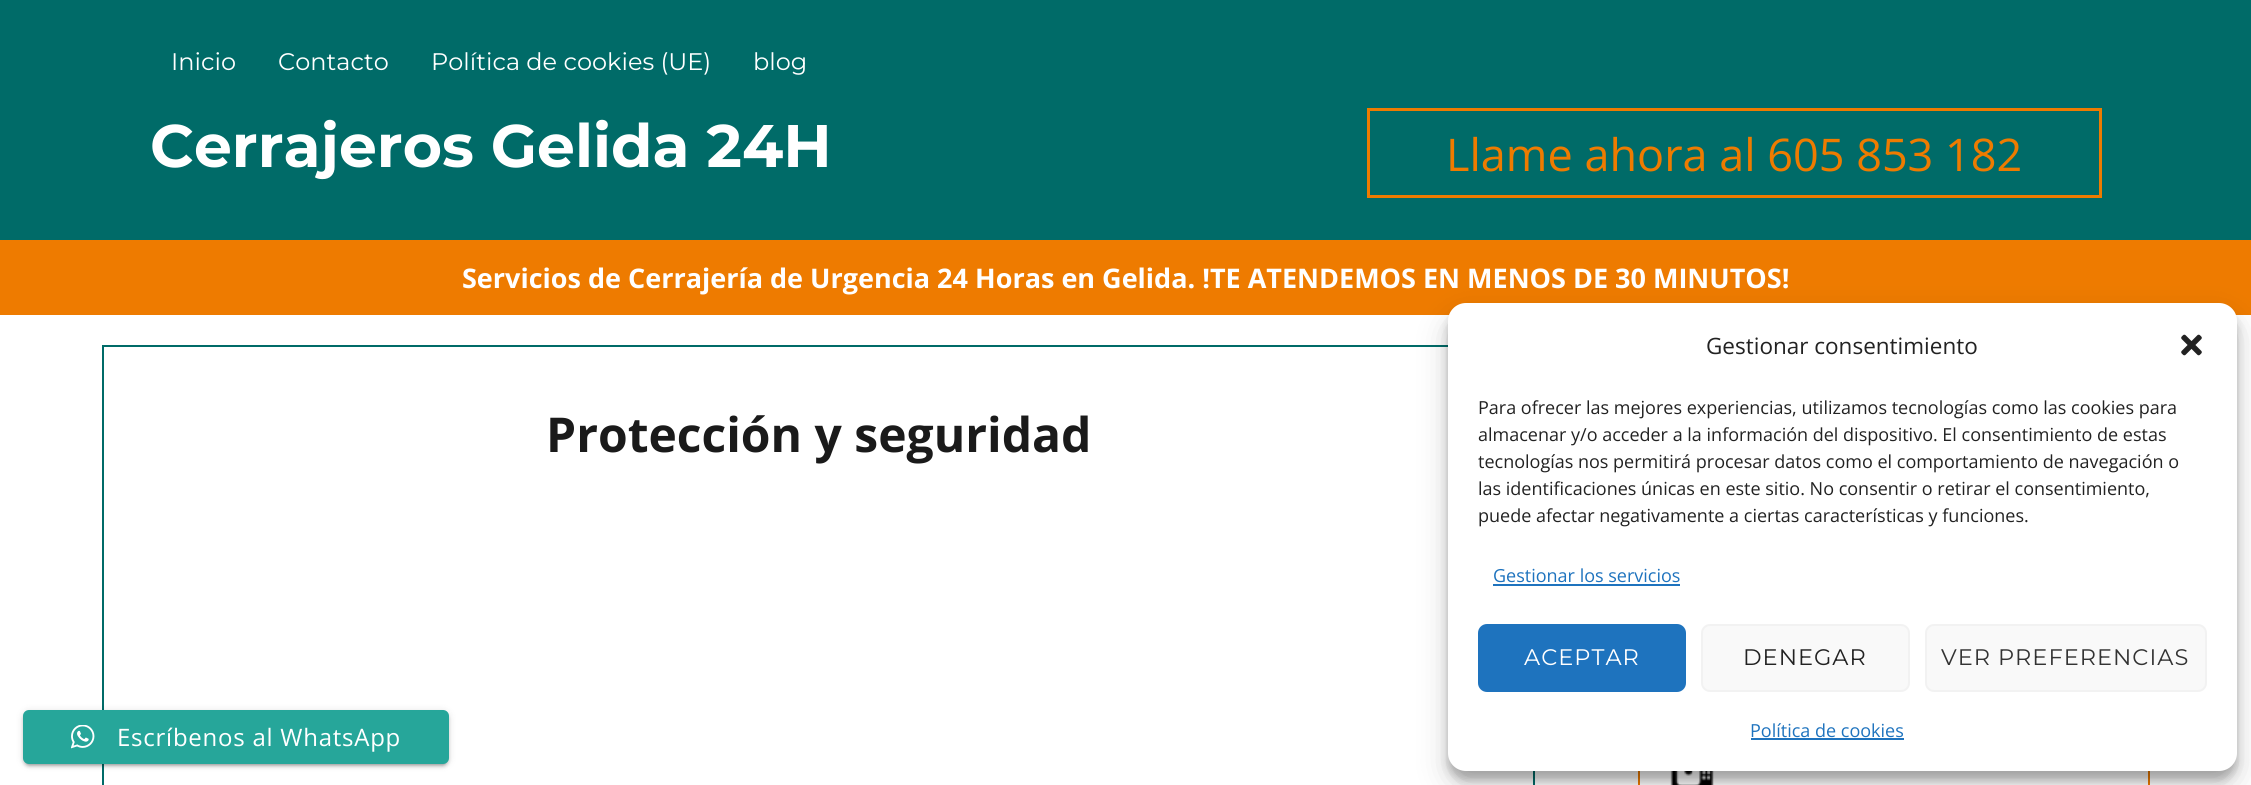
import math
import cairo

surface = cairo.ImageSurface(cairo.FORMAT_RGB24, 2251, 785)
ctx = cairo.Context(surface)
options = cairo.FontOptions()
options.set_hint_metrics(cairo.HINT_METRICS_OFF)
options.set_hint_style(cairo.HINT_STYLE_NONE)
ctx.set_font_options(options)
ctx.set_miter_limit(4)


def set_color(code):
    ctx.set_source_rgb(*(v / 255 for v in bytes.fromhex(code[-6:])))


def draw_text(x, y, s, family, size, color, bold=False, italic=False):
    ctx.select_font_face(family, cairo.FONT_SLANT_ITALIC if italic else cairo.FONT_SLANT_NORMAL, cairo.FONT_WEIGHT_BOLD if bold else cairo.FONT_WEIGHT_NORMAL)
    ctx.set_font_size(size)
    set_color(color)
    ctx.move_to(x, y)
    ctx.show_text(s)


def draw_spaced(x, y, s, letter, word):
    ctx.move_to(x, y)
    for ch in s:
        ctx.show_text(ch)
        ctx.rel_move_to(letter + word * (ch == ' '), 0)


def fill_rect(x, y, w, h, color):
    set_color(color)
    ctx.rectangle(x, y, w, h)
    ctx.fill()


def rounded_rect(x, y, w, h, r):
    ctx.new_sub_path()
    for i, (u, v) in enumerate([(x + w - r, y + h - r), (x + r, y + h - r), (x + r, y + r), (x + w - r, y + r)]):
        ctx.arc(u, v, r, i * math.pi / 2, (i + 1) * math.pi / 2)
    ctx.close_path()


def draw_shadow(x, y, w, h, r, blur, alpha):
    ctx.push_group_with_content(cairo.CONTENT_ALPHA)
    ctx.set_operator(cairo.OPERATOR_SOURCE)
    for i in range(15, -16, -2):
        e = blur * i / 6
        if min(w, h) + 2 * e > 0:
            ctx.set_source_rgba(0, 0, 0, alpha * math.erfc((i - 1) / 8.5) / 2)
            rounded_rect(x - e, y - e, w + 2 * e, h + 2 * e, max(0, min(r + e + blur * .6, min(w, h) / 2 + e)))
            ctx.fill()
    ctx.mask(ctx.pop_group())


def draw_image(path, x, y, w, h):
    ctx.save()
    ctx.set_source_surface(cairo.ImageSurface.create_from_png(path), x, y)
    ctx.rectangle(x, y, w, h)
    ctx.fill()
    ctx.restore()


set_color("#ffffff")
ctx.paint()
fill_rect(0, 0, 2251, 240, "#006b68")
draw_text(171, 70, "Inicio", "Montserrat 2 Thin", 24, "#ffffff")
draw_text(278, 70, "Contacto", "Montserrat 2 Thin", 24, "#ffffff")
draw_text(431, 70, "Política de cookies (UE)", "Montserrat 2 Thin", 24, "#ffffff")
draw_text(753, 70, "blog", "Montserrat 2 Thin", 24, "#ffffff")
draw_text(150, 167, "Cerrajeros Gelida 24H", "Montserrat Thin", 60, "#ffffff")
ctx.rectangle(1368.5, 109.5, 732, 87)
set_color("#ee7b00")
ctx.set_line_width(3)
ctx.stroke()
draw_text(1446, 171, "Llame ahora al 605 853 182", "Open Sans", 45, "#ee7b00")
fill_rect(0, 240, 2251, 75, "#ee7b00")
draw_text(462, 288, "Servicios de Cerrajería de Urgencia 24 Horas en Gelida. !TE ATENDEMOS EN MENOS DE 30 MINUTOS!", "Open Sans", 27, "#ffffff", bold=True)
ctx.rectangle(103, 346, 1431, 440)
set_color("#006b68")
ctx.set_line_width(2)
ctx.stroke()
draw_text(546, 452, "Protección y seguridad", "Open Sans", 48, "#1a1a1a", bold=True)
ctx.rectangle(1639, 346, 510, 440)
set_color("#ee7b00")
ctx.stroke()
draw_image("assets/img1.png", 1670, 771, 44, 14)
set_color("#000000")
draw_shadow(26, 717, 420, 48, 3, 1, 0.2)
draw_shadow(23, 711, 426, 54, 6, 4, 0.12)
draw_shadow(23, 713, 426, 54, 6, 1.5, 0.14)
set_color("#26a69a")
rounded_rect(23, 710, 426, 54, 6)
ctx.fill()
draw_image("assets/img2.png", 71, 725, 24, 24)
ctx.select_font_face("Open Sans")
ctx.set_font_size(24)
set_color("#ffffff")
draw_spaced(117, 746, "Escríbenos al WhatsApp", 0.75, 0)
set_color("#000000")
draw_shadow(1448, 312, 789, 468, 18, 4.5, 0.23)
draw_shadow(1448, 318, 789, 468, 18, 15, 0.19)
set_color("#ffffff")
rounded_rect(1448, 303, 789, 468, 18)
ctx.fill()
draw_text(1706, 354, "Gestionar consentimiento", "Open Sans", 22.5, "#222222")
draw_image("assets/img3.png", 2181, 334, 21, 22)
draw_text(1478, 414, "Para ofrecer las mejores experiencias, utilizamos tecnologías como las cookies para", "Open Sans", 18, "#222222")
draw_text(1478, 441, "almacenar y/o acceder a la información del dispositivo. El consentimiento de estas", "Open Sans", 18, "#222222")
draw_text(1478, 468, "tecnologías nos permitirá procesar datos como el comportamiento de navegación o", "Open Sans", 18, "#222222")
draw_text(1478, 495, "las identificaciones únicas en este sitio. No consentir o retirar el consentimiento,", "Open Sans", 18, "#222222")
draw_text(1478, 522, "puede afectar negativamente a ciertas características y funciones.", "Open Sans", 18, "#222222")
draw_text(1493, 582, "Gestionar los servicios", "Open Sans", 18, "#1e73be")
fill_rect(1493, 584, 187, 2, "#1e73be")
rounded_rect(1479, 625, 206, 66, 8)
ctx.fill_preserve()
ctx.stroke()
ctx.select_font_face("Montserrat 2 Thin")
ctx.set_font_size(22.5)
set_color("#ffffff")
draw_spaced(1524, 665, "ACEPTAR", 1, 0)
set_color("#f9f9f9")
rounded_rect(1702, 625, 207, 66, 8)
ctx.fill_preserve()
set_color("#f2f2f2")
ctx.stroke()
set_color("#222222")
draw_spaced(1743, 665, "DENEGAR", 1, 0)
set_color("#f9f9f9")
rounded_rect(1926, 625, 280, 66, 8)
ctx.fill_preserve()
set_color("#f2f2f2")
ctx.stroke()
set_color("#333333")
draw_spaced(1941, 665, "VER PREFERENCIAS", 1, 0)
draw_text(1750, 737, "Política de cookies", "Open Sans", 18, "#1e73be")
fill_rect(1751, 738, 153, 2, "#1e73be")
surface.write_to_png("output.png")
